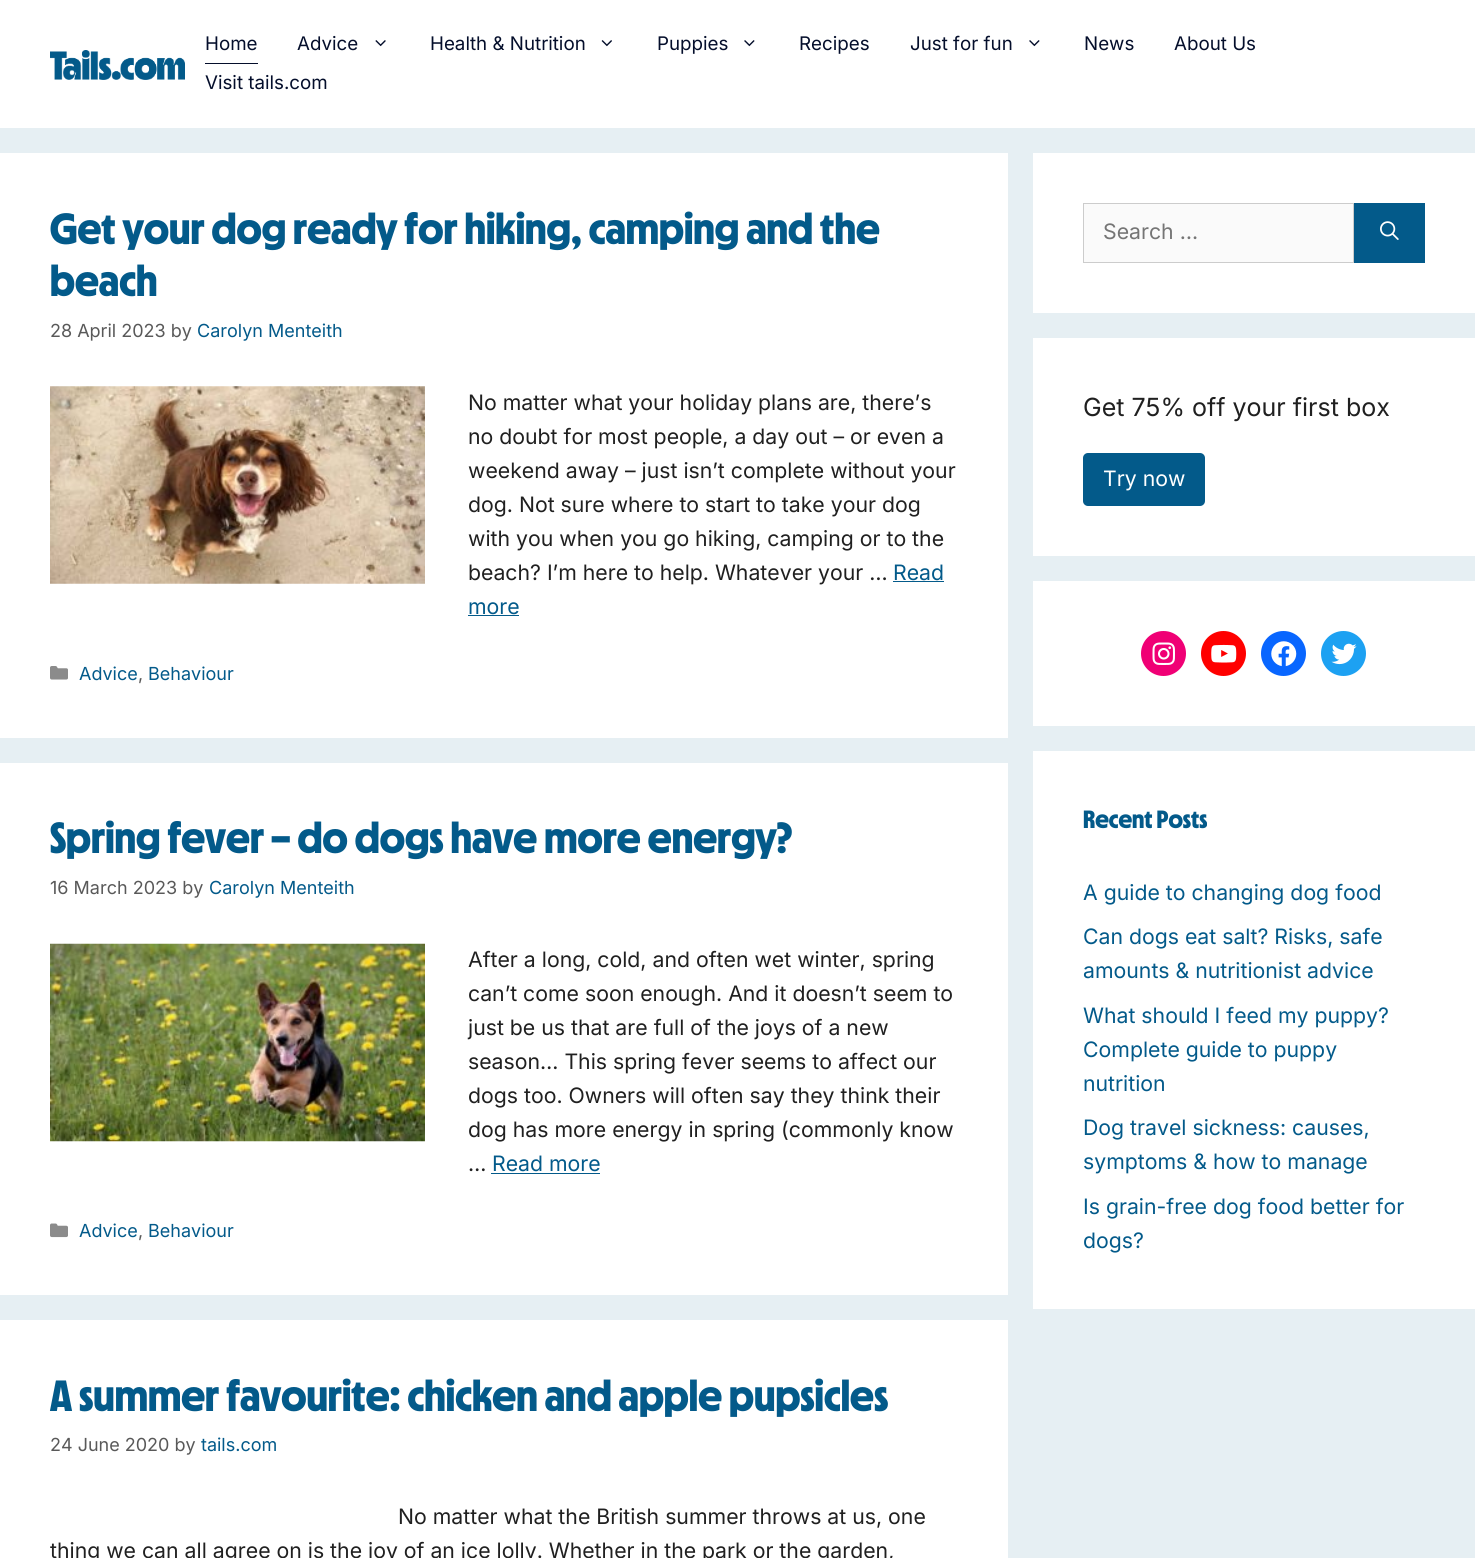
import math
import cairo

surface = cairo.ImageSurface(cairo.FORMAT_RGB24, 1475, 1558)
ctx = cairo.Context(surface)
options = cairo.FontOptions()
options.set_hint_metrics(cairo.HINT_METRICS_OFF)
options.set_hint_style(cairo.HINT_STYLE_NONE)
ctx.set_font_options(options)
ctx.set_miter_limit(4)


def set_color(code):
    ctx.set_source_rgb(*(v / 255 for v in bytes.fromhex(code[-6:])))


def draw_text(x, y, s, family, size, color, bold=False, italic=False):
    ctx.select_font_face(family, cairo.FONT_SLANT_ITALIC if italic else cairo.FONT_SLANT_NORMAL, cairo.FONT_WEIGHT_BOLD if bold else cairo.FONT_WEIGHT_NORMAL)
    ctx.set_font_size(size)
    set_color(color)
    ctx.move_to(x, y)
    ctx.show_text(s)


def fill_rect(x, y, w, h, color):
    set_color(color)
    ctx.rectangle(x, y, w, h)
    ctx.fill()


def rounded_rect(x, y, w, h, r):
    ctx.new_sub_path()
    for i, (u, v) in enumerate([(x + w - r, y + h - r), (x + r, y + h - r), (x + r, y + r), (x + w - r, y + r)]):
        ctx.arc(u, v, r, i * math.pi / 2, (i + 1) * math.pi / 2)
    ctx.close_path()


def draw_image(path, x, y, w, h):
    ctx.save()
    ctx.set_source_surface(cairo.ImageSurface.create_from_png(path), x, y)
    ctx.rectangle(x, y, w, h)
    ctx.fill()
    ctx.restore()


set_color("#e6eff3")
ctx.paint()
fill_rect(0, 0, 1475, 128, "#ffffff")
draw_image("assets/img1.png", 50, 50, 135, 30)
fill_rect(205, 63, 53, 1, "#040e2b")
draw_text(205, 50, "Home", "Inter", 18.75, "#040e2b")
draw_text(297, 50, "Advice", "Inter", 18.75, "#040e2b")
draw_image("assets/img2.png", 375, 40, 11, 7)
draw_text(430, 50, "Health & Nutrition", "Inter", 18.75, "#040e2b")
draw_image("assets/img3.png", 601, 40, 11, 7)
draw_text(657, 50, "Puppies", "Inter", 18.75, "#040e2b")
draw_image("assets/img4.png", 744, 40, 11, 7)
draw_text(799, 50, "Recipes", "Inter", 18.75, "#040e2b")
draw_text(910, 50, "Just for fun", "Inter", 18.75, "#040e2b")
draw_image("assets/img4.png", 1029, 40, 11, 7)
draw_text(1084, 50, "News", "Inter", 18.75, "#040e2b")
draw_text(1174, 50, "About Us", "Inter", 18.75, "#040e2b")
draw_text(205, 89, "Visit tails.com", "Inter", 18.75, "#040e2b")
fill_rect(0, 153, 1008, 585, "#ffffff")
draw_text(50, 244, "Get your dog ready for hiking, camping and the", "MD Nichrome", 43.75, "#035a8a", bold=True)
draw_text(50, 296, "beach", "MD Nichrome", 43.75, "#035a8a", bold=True)
draw_text(50, 337, "28 April 2023 by", "Inter", 18, "#595959")
draw_text(197, 337, "Carolyn Menteith", "Inter", 18, "#035a8a")
draw_image("assets/img5.png", 50, 386, 375, 198)
draw_text(468, 410, "No matter what your holiday plans are, there’s", "Inter", 21.25, "#202020")
draw_text(468, 444, "no doubt for most people, a day out – or even a", "Inter", 21.25, "#202020")
draw_text(468, 478, "weekend away – just isn’t complete without your", "Inter", 21.25, "#202020")
draw_text(468, 512, "dog. Not sure where to start to take your dog", "Inter", 21.25, "#202020")
draw_text(468, 546, "with you when you go hiking, camping or to the", "Inter", 21.25, "#202020")
draw_text(468, 580, "beach? I’m here to help. Whatever your …", "Inter", 21.25, "#202020")
draw_text(893, 580, "Read", "Inter", 21.25, "#035a8a")
fill_rect(893, 581, 51, 1, "#035a8a")
draw_text(468, 614, "more", "Inter", 21.25, "#035a8a")
fill_rect(468, 615, 51, 1, "#035a8a")
draw_image("assets/img6.png", 50, 666, 18, 14)
draw_text(79, 680, "Advice", "Inter", 18, "#035a8a")
draw_text(138, 680, ",", "Inter", 18, "#595959")
draw_text(148, 680, "Behaviour", "Inter", 18, "#035a8a")
fill_rect(0, 763, 1008, 532, "#ffffff")
draw_text(50, 853, "Spring fever – do dogs have more energy?", "MD Nichrome", 43.75, "#035a8a", bold=True)
draw_text(50, 894, "16 March 2023 by", "Inter", 18, "#595959")
draw_text(209, 894, "Carolyn Menteith", "Inter", 18, "#035a8a")
draw_image("assets/img7.png", 50, 943, 375, 199)
draw_text(468, 967, "After a long, cold, and often wet winter, spring", "Inter", 21.25, "#202020")
draw_text(468, 1001, "can’t come soon enough. And it doesn’t seem to", "Inter", 21.25, "#202020")
draw_text(468, 1035, "just be us that are full of the joys of a new", "Inter", 21.25, "#202020")
draw_text(468, 1069, "season… This spring fever seems to affect our", "Inter", 21.25, "#202020")
draw_text(468, 1103, "dogs too. Owners will often say they think their", "Inter", 21.25, "#202020")
draw_text(468, 1137, "dog has more energy in spring (commonly know", "Inter", 21.25, "#202020")
draw_text(468, 1171, "…", "Inter", 21.25, "#202020")
draw_text(492, 1171, "Read more", "Inter", 21.25, "#035a8a")
fill_rect(491, 1173, 109, 1, "#035a8a")
draw_image("assets/img8.png", 50, 1223, 18, 15)
draw_text(79, 1237, "Advice", "Inter", 18, "#035a8a")
draw_text(138, 1237, ",", "Inter", 18, "#595959")
draw_text(148, 1237, "Behaviour", "Inter", 18, "#035a8a")
fill_rect(0, 1320, 1008, 238, "#ffffff")
draw_text(50, 1411, "A summer favourite: chicken and apple pupsicles", "MD Nichrome", 43.75, "#035a8a", bold=True)
draw_text(50, 1451, "24 June 2020 by", "Inter", 18, "#595959")
draw_text(201, 1451, "tails.com", "Inter", 18, "#035a8a")
draw_text(398, 1524, "No matter what the British summer throws at us, one", "Inter", 21.25, "#202020")
draw_text(50, 1558, "thing we can all agree on is the joy of an ice lolly. Whether in the park or the garden,", "Inter", 21.25, "#202020")
fill_rect(1033, 153, 442, 160, "#ffffff")
set_color("#fafafa")
ctx.rectangle(1083.5, 203.5, 270, 59)
ctx.fill_preserve()
set_color("#cccccc")
ctx.set_line_width(1)
ctx.stroke()
draw_text(1103, 239, "Search …", "Inter", 21.25, "#757575")
fill_rect(1354, 203, 71, 60, "#035a8a")
draw_image("assets/img9.png", 1380, 221, 19, 19)
fill_rect(1033, 338, 442, 218, "#ffffff")
draw_text(1083, 416, "Get 75% off your first box", "Inter", 25, "#202020")
set_color("#035a8a")
rounded_rect(1083, 453, 122, 53, 5)
ctx.fill()
draw_text(1103, 486, "Try now", "Inter", 21.25, "#ffffff")
fill_rect(1033, 581, 442, 145, "#ffffff")
set_color("#f00075")
ctx.new_path()
ctx.arc(1163.5, 653.5, 22.5, 0, 2 * math.pi)
ctx.fill()
draw_image("assets/img10.png", 1152, 642, 23, 23)
set_color("#ff0000")
ctx.arc(1223.5, 653.5, 22.5, 0, 2 * math.pi)
ctx.fill()
draw_image("assets/img11.png", 1211, 644, 26, 19)
set_color("#0866ff")
ctx.arc(1283.5, 653.5, 22.5, 0, 2 * math.pi)
ctx.fill()
draw_image("assets/img12.png", 1271, 641, 26, 26)
set_color("#1da1f2")
ctx.arc(1343.5, 653.5, 22.5, 0, 2 * math.pi)
ctx.fill()
draw_image("assets/img13.png", 1331, 643, 26, 22)
fill_rect(1033, 751, 442, 558, "#ffffff")
draw_text(1083, 828, "Recent Posts", "MD Nichrome", 25, "#035a8a", bold=True)
draw_text(1083, 900, "A guide to changing dog food", "Inter", 21.25, "#035a8a")
draw_text(1083, 944, "Can dogs eat salt? Risks, safe", "Inter", 21.25, "#035a8a")
draw_text(1083, 978, "amounts & nutritionist advice", "Inter", 21.25, "#035a8a")
draw_text(1083, 1023, "What should I feed my puppy?", "Inter", 21.25, "#035a8a")
draw_text(1083, 1057, "Complete guide to puppy", "Inter", 21.25, "#035a8a")
draw_text(1083, 1091, "nutrition", "Inter", 21.25, "#035a8a")
draw_text(1083, 1135, "Dog travel sickness: causes,", "Inter", 21.25, "#035a8a")
draw_text(1083, 1169, "symptoms & how to manage", "Inter", 21.25, "#035a8a")
draw_text(1083, 1214, "Is grain-free dog food better for", "Inter", 21.25, "#035a8a")
draw_text(1083, 1248, "dogs?", "Inter", 21.25, "#035a8a")
surface.write_to_png("output.png")
